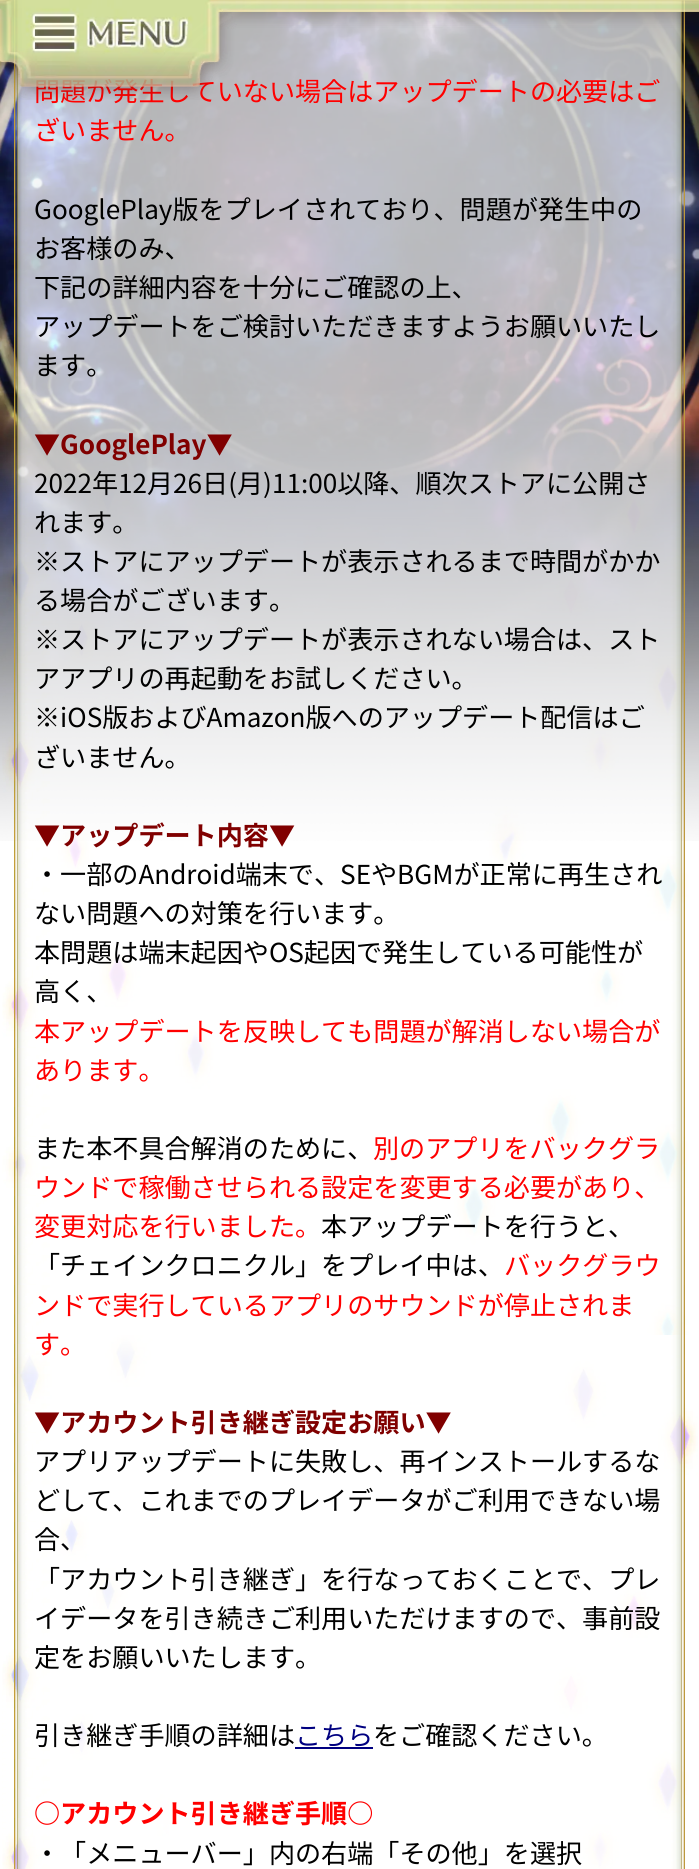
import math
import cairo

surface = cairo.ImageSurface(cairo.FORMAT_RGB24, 699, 1869)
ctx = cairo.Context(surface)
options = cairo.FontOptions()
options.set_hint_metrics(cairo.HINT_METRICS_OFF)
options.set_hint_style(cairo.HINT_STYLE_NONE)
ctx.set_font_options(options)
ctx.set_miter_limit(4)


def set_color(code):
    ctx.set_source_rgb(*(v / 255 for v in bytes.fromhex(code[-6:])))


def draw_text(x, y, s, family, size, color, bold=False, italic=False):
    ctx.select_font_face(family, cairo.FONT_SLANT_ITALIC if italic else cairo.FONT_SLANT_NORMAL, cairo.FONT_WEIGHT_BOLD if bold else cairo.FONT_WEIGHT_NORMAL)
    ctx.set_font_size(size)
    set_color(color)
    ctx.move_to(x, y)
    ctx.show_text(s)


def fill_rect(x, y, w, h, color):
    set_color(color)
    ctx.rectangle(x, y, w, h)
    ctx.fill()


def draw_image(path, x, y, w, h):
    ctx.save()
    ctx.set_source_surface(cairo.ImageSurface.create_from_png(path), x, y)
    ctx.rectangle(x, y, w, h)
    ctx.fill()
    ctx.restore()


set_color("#ffffff")
ctx.paint()
draw_image("assets/img1.png", 2, 390, 696, 1479)
draw_image("assets/img2.png", 0, 0, 699, 841)
draw_image("assets/img4.png", 14, 0, 671, 1869)
draw_text(34, 101, "問題が発生していない場合はアップデートの必要はご", "Noto Sans JP", 26.1, "#ff0000")
draw_image("assets/img3.png", 0, 0, 699, 100)
draw_text(34, 140, "ざいません。", "Noto Sans JP", 26.1, "#ff0000")
draw_text(34, 219, "GooglePlay版をプレイされており、問題が発生中の", "Noto Sans JP", 26.1, "#000000")
draw_text(34, 258, "お客様のみ、", "Noto Sans JP", 26.1, "#000000")
draw_text(34, 297, "下記の詳細内容を十分にご確認の上、", "Noto Sans JP", 26.1, "#000000")
draw_text(34, 336, "アップデートをご検討いただきますようお願いいたし", "Noto Sans JP", 26.1, "#000000")
draw_text(34, 375, "ます。", "Noto Sans JP", 26.1, "#000000")
draw_text(34, 454, "▼GooglePlay▼", "Noto Sans JP", 26.1, "#800000", bold=True)
draw_text(34, 493, "2022年12月26日(月)11:00以降、順次ストアに公開さ", "Noto Sans JP", 26.1, "#000000")
draw_text(34, 532, "れます。", "Noto Sans JP", 26.1, "#000000")
draw_text(34, 571, "※ストアにアップデートが表示されるまで時間がかか", "Noto Sans JP", 26.1, "#000000")
draw_text(34, 610, "る場合がございます。", "Noto Sans JP", 26.1, "#000000")
draw_text(34, 649, "※ストアにアップデートが表示されない場合は、スト", "Noto Sans JP", 26.1, "#000000")
draw_text(34, 688, "アアプリの再起動をお試しください。", "Noto Sans JP", 26.1, "#000000")
draw_text(34, 727, "※iOS版およびAmazon版へのアップデート配信はご", "Noto Sans JP", 26.1, "#000000")
draw_text(34, 767, "ざいません。", "Noto Sans JP", 26.1, "#000000")
draw_text(34, 845, "▼アップデート内容▼", "Noto Sans JP", 26.1, "#800000", bold=True)
draw_text(34, 884, "・一部のAndroid端末で、SEやBGMが正常に再生され", "Noto Sans JP", 26.1, "#000000")
draw_text(34, 923, "ない問題への対策を行います。", "Noto Sans JP", 26.1, "#000000")
draw_text(34, 962, "本問題は端末起因やOS起因で発生している可能性が", "Noto Sans JP", 26.1, "#000000")
draw_text(34, 1001, "高く、", "Noto Sans JP", 26.1, "#000000")
draw_text(34, 1041, "本アップデートを反映しても問題が解消しない場合が", "Noto Sans JP", 26.1, "#ff0000")
draw_text(34, 1080, "あります。", "Noto Sans JP", 26.1, "#ff0000")
draw_text(34, 1158, "また本不具合解消のために、", "Noto Sans JP", 26.1, "#000000")
draw_text(373, 1158, "別のアプリをバックグラ", "Noto Sans JP", 26.1, "#ff0000")
draw_text(34, 1197, "ウンドで稼働させられる設定を変更する必要があり、", "Noto Sans JP", 26.1, "#ff0000")
draw_text(34, 1236, "変更対応を行いました。", "Noto Sans JP", 26.1, "#ff0000")
draw_text(321, 1236, "本アップデートを行うと、", "Noto Sans JP", 26.1, "#000000")
draw_text(34, 1275, "「チェインクロニクル」をプレイ中は、", "Noto Sans JP", 26.1, "#000000")
draw_text(504, 1275, "バックグラウ", "Noto Sans JP", 26.1, "#ff0000")
draw_text(34, 1315, "ンドで実行しているアプリのサウンドが停止されま", "Noto Sans JP", 26.1, "#ff0000")
draw_text(34, 1354, "す。", "Noto Sans JP", 26.1, "#ff0000")
draw_text(34, 1432, "▼アカウント引き継ぎ設定お願い▼", "Noto Sans JP", 26.1, "#800000", bold=True)
draw_text(34, 1471, "アプリアップデートに失敗し、再インストールするな", "Noto Sans JP", 26.1, "#000000")
draw_text(34, 1510, "どして、これまでのプレイデータがご利用できない場", "Noto Sans JP", 26.1, "#000000")
draw_text(34, 1549, "合、", "Noto Sans JP", 26.1, "#000000")
draw_text(34, 1589, "「アカウント引き継ぎ」を行なっておくことで、プレ", "Noto Sans JP", 26.1, "#000000")
draw_text(34, 1628, "イデータを引き続きご利用いただけますので、事前設", "Noto Sans JP", 26.1, "#000000")
draw_text(34, 1667, "定をお願いいたします。", "Noto Sans JP", 26.1, "#000000")
draw_text(34, 1745, "引き継ぎ手順の詳細は", "Noto Sans JP", 26.1, "#000000")
draw_text(295, 1745, "こちら", "Noto Sans JP", 26.1, "#000080")
fill_rect(295, 1747, 78, 2, "#000080")
draw_text(373, 1745, "をご確認ください。", "Noto Sans JP", 26.1, "#000000")
draw_text(34, 1823, "○アカウント引き継ぎ手順○", "Noto Sans JP", 26.1, "#ff0000", bold=True)
draw_text(34, 1863, "・「メニューバー」内の右端「その他」を選択", "Noto Sans JP", 26.1, "#000000")
surface.write_to_png("output.png")
